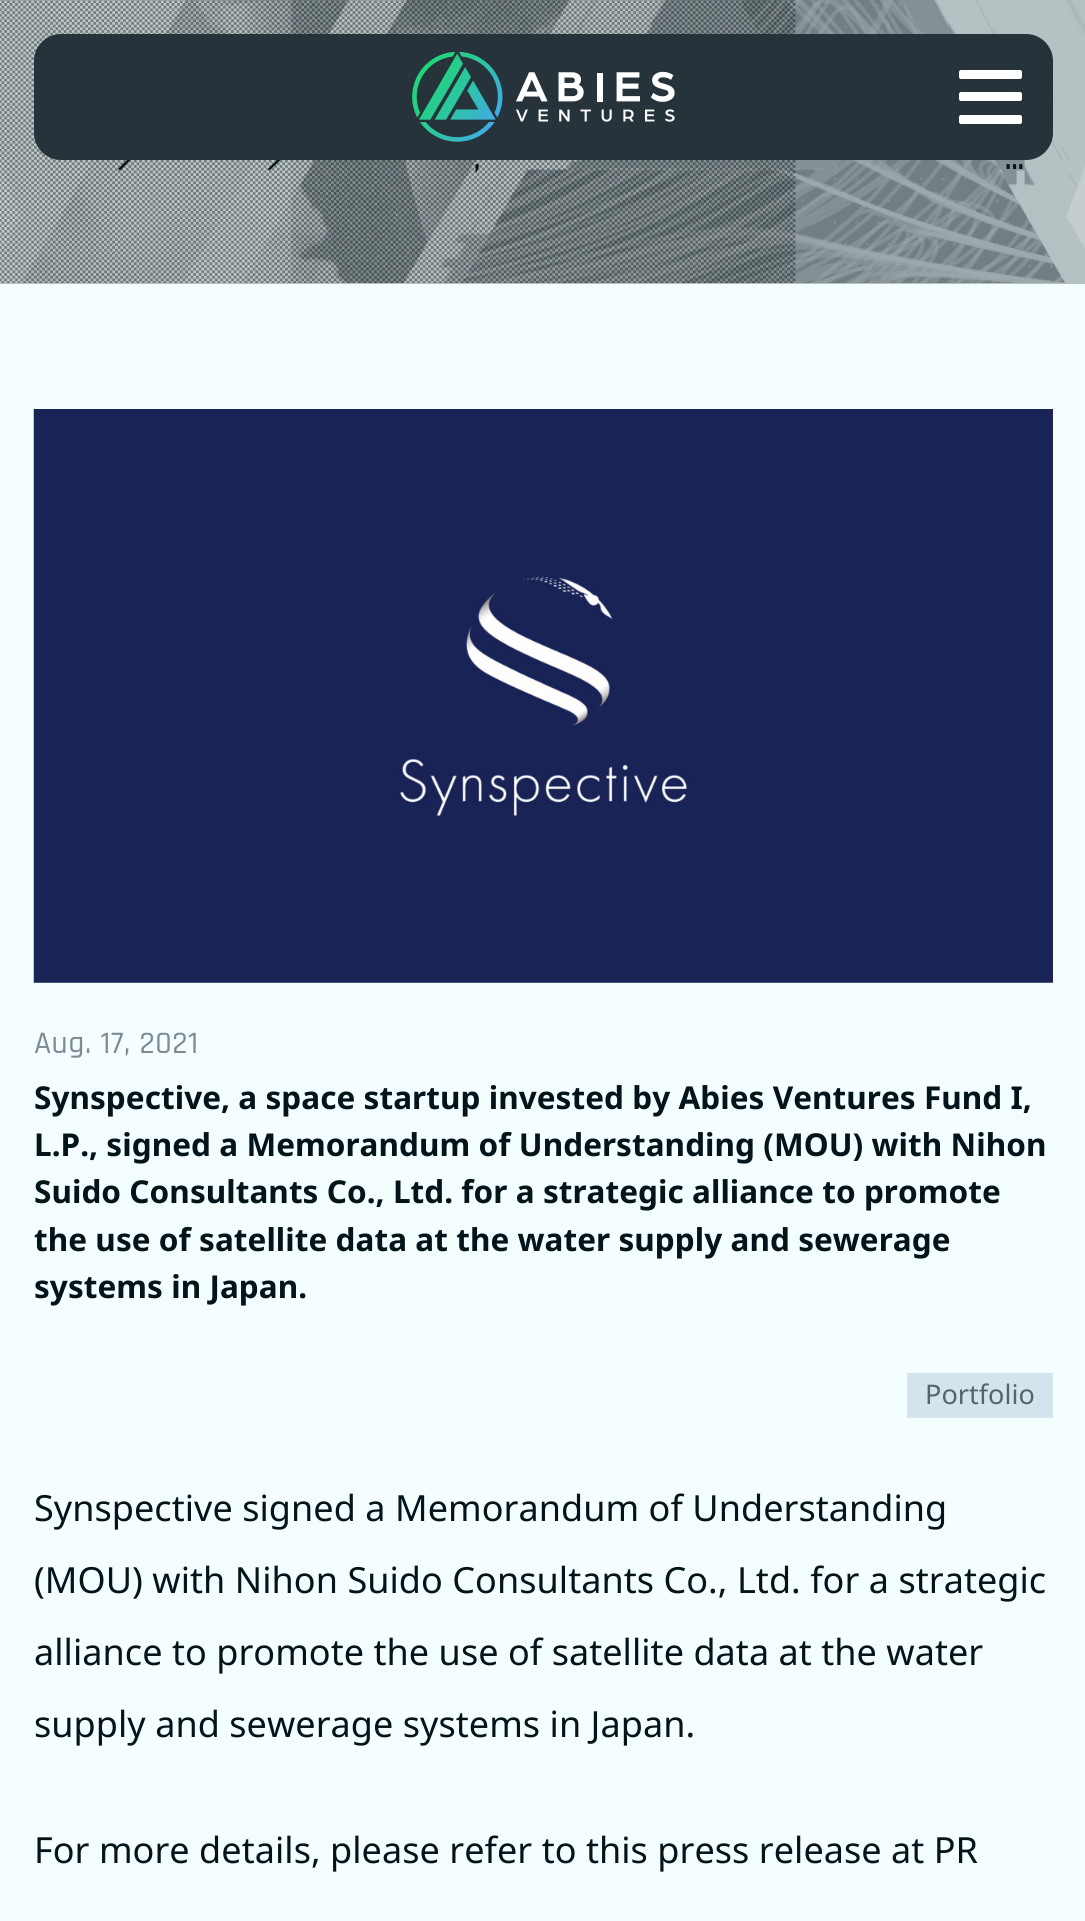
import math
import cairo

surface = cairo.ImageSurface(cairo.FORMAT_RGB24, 1085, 1921)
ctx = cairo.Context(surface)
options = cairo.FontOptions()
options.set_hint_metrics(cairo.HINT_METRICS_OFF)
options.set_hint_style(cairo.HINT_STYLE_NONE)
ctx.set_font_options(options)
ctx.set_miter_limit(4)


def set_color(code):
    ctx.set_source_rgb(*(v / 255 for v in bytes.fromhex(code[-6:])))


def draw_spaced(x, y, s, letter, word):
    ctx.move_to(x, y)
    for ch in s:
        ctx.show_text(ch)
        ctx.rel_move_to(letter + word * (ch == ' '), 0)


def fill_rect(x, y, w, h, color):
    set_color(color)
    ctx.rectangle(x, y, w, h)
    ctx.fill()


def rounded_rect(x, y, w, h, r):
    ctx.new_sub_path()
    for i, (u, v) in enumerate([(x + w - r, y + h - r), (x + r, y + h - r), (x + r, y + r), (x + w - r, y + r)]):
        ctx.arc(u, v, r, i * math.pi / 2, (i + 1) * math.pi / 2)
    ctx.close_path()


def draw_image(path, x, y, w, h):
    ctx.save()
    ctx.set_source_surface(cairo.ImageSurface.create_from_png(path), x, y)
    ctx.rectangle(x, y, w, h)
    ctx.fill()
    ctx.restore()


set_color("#b5c0c3")
ctx.paint()
draw_image("assets/img2.png", 0, 0, 1085, 283)
set_color("#03141a")
ctx.new_path()
ctx.move_to(129.5, 157.5)
ctx.line_to(131, 159.5)
ctx.line_to(120, 170.5)
ctx.line_to(118, 169)
ctx.close_path()
ctx.fill()
ctx.new_path()
ctx.move_to(279.5, 157.5)
ctx.line_to(281, 159.5)
ctx.line_to(269.5, 170.5)
ctx.line_to(268, 169)
ctx.close_path()
ctx.fill()
set_color("#26333a")
rounded_rect(34, 34, 1019, 126, 27)
ctx.fill()
draw_image("assets/img1.png", 412, 52, 263, 90)
set_color("#ffffff")
rounded_rect(959, 70, 63, 9, 2)
ctx.fill()
rounded_rect(959, 92, 63, 9, 2)
ctx.fill()
rounded_rect(959, 115, 63, 9, 2)
ctx.fill()
ctx.select_font_face("Rajdhani SemiBold")
ctx.set_font_size(31.5)
set_color("#03141a")
draw_spaced(474, 169, ",", 1, 0)
draw_spaced(1005, 169, "…", 1, 0)
fill_rect(0, 284, 1085, 1637, "#f4fdff")
draw_image("assets/img3.png", 33, 409, 1020, 574)
ctx.select_font_face("Rajdhani Medium")
set_color("#7d8c94")
draw_spaced(34, 1053, "Aug. 17, 2021", 0.6, 0)
ctx.select_font_face("Noto Sans", cairo.FONT_SLANT_NORMAL, cairo.FONT_WEIGHT_BOLD)
set_color("#03141a")
draw_spaced(34, 1109, "Synspective, a space startup invested by Abies Ventures Fund I,", 0.05, 0)
draw_spaced(34, 1156, "L.P., signed a Memorandum of Understanding (MOU) with Nihon", 0.05, 0)
draw_spaced(34, 1203, "Suido Consultants Co., Ltd. for a strategic alliance to promote", 0.05, 0)
draw_spaced(34, 1251, "the use of satellite data at the water supply and sewerage", 0.05, 0)
draw_spaced(34, 1298, "systems in Japan.", 0.05, 0)
fill_rect(907, 1373, 146, 45, "#d4e4ed")
ctx.select_font_face("Noto Sans")
ctx.set_font_size(27)
set_color("#56646c")
draw_spaced(925, 1404, "Portfolio", 0.05, 0)
ctx.set_font_size(36)
set_color("#03141a")
draw_spaced(34, 1521, "Synspective signed a Memorandum of Understanding", 0.05, 0)
draw_spaced(34, 1593, "(MOU) with Nihon Suido Consultants Co., Ltd. for a strategic", 0.05, 0)
draw_spaced(34, 1665, "alliance to promote the use of satellite data at the water", 0.05, 0)
draw_spaced(34, 1737, "supply and sewerage systems in Japan.", 0.05, 0)
draw_spaced(34, 1863, "For more details, please refer to this press release at PR", 0.05, 0)
surface.write_to_png("output.png")
